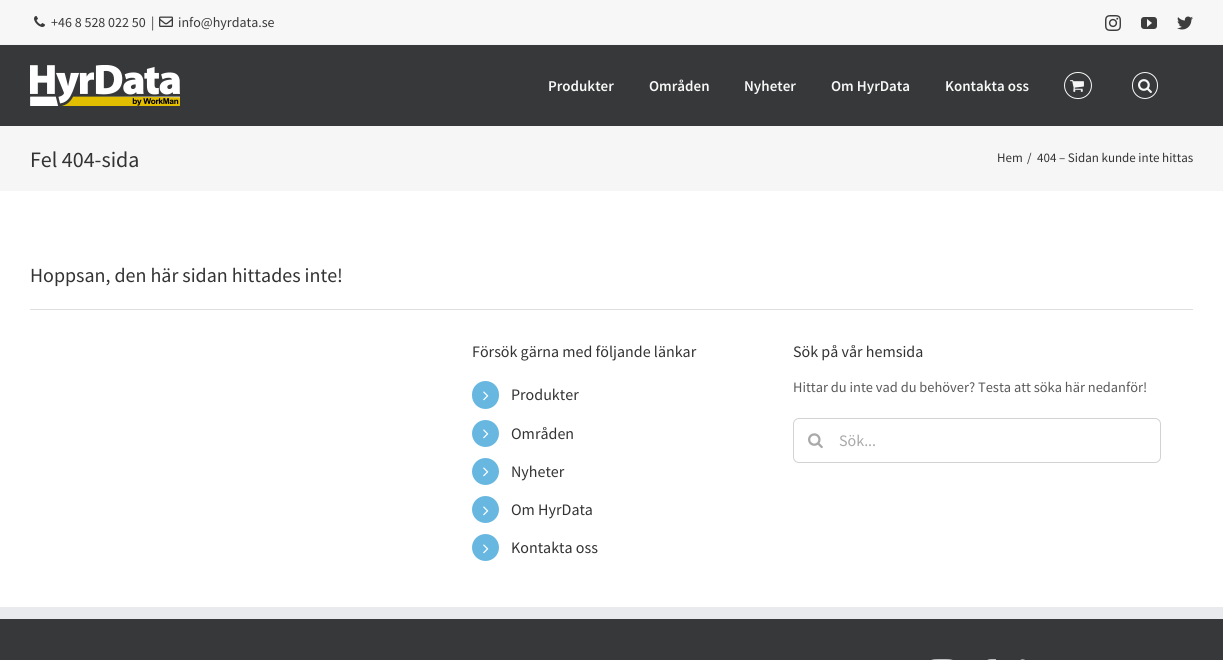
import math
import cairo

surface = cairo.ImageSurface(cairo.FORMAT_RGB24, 1223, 660)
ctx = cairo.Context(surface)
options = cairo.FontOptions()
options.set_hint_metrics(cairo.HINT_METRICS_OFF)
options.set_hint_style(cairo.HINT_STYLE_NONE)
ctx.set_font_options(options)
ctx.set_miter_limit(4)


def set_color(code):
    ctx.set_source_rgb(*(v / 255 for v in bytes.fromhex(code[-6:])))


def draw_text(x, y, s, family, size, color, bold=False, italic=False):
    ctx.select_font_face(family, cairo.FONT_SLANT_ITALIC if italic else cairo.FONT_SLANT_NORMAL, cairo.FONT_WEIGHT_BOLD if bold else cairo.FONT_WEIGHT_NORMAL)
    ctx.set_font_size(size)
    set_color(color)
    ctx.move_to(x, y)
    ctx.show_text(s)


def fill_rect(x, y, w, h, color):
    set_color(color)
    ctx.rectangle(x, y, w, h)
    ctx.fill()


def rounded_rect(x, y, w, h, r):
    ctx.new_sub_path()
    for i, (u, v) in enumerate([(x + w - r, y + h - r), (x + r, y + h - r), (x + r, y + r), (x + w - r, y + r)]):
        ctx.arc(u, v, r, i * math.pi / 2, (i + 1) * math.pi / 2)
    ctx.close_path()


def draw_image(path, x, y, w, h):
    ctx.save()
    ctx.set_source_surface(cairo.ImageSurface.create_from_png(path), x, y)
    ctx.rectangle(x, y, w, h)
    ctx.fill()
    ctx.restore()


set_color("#ffffff")
ctx.paint()
fill_rect(0, 0, 1223, 44, "#f7f7f7")
fill_rect(0, 44, 1223, 1, "#f2f2f2")
draw_image("assets/img1.png", 34, 16, 11, 11)
draw_text(51, 27, "+46 8 528 022 50", "Source Sans Pro", 14, "#3a3a3a")
draw_text(151, 27, "|", "Source Sans Pro", 14, "#3a3a3a")
draw_image("assets/img2.png", 159, 16, 14, 11)
draw_text(178, 27, "info@hyrdata.se", "Source Sans Pro", 14, "#3a3a3a")
draw_image("assets/img3.png", 1105, 15, 16, 16)
draw_image("assets/img4.png", 1141, 17, 16, 12)
draw_image("assets/img5.png", 1177, 16, 16, 14)
fill_rect(0, 45, 1223, 81, "#363839")
draw_image("assets/img6.png", 30, 65, 150, 41)
draw_text(548, 91, "Produkter", "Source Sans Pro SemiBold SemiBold", 15, "#f7f7f7")
draw_text(649, 91, "Områden", "Source Sans Pro SemiBold SemiBold", 15, "#f7f7f7")
draw_text(744, 91, "Nyheter", "Source Sans Pro SemiBold SemiBold", 15, "#f7f7f7")
draw_text(831, 91, "Om HyrData", "Source Sans Pro SemiBold SemiBold", 15, "#f7f7f7")
draw_text(945, 91, "Kontakta oss", "Source Sans Pro SemiBold SemiBold", 15, "#f7f7f7")
rounded_rect(1064.5, 72.5, 27, 26, 13)
ctx.set_line_width(1)
ctx.stroke()
draw_image("assets/img7.png", 1070, 80, 14, 12)
rounded_rect(1132.5, 72.5, 25, 26, 12.5)
ctx.stroke()
draw_image("assets/img8.png", 1138, 79, 14, 14)
fill_rect(0, 126, 1223, 65, "#f6f6f6")
draw_text(30, 167, "Fel 404-sida", "Source Sans Pro", 22, "#333333")
draw_text(997, 162, "Hem", "Source Sans Pro", 13, "#333333")
draw_text(1027, 162, "/", "Source Sans Pro", 13, "#333333")
draw_text(1037, 162, "404 – Sidan kunde inte hittas", "Source Sans Pro", 13, "#333333")
fill_rect(30, 309, 1163, 1, "#e0dede")
draw_text(30, 282, "Hoppsan, den här sidan hittades inte!", "Source Sans Pro", 20, "#333333")
draw_text(472, 357, "Försök gärna med följande länkar", "Source Sans Pro", 16, "#333333")
set_color("#67b7e1")
rounded_rect(472, 381, 27, 28, 13.5)
ctx.fill()
draw_image("assets/img9.png", 483, 391, 6, 10)
draw_text(511, 400, "Produkter", "Source Sans Pro", 16, "#333333")
set_color("#67b7e1")
ctx.new_path()
ctx.arc(485.5, 433.5, 13.5, 0, 2 * math.pi)
ctx.fill()
draw_image("assets/img9.png", 483, 429, 6, 10)
draw_text(511, 439, "Områden", "Source Sans Pro", 16, "#333333")
set_color("#67b7e1")
ctx.new_path()
ctx.arc(485.5, 471.5, 13.5, 0, 2 * math.pi)
ctx.fill()
draw_image("assets/img9.png", 483, 467, 6, 10)
draw_text(511, 477, "Nyheter", "Source Sans Pro", 16, "#333333")
set_color("#67b7e1")
ctx.new_path()
ctx.arc(485.5, 509.5, 13.5, 0, 2 * math.pi)
ctx.fill()
draw_image("assets/img9.png", 483, 506, 6, 10)
draw_text(511, 515, "Om HyrData", "Source Sans Pro", 16, "#333333")
set_color("#67b7e1")
ctx.new_path()
ctx.arc(485.5, 547.5, 13.5, 0, 2 * math.pi)
ctx.fill()
draw_image("assets/img9.png", 483, 544, 6, 10)
draw_text(511, 553, "Kontakta oss", "Source Sans Pro", 16, "#333333")
draw_text(793, 357, "Sök på vår hemsida", "Source Sans Pro", 16, "#333333")
draw_text(793, 392, "Hittar du inte vad du behöver? Testa att söka här nedanför!", "Source Sans Pro", 14.4, "#5a5a5a")
rounded_rect(793.5, 418.5, 367, 44, 5.5)
set_color("#d2d2d2")
ctx.stroke()
draw_image("assets/img10.png", 808, 433, 15, 16)
draw_text(839, 446, "Sök...", "Source Sans Pro", 16, "#aaa9a9")
fill_rect(0, 619, 1223, 41, "#363839")
fill_rect(0, 607, 1223, 12, "#e9eaee")
draw_image("assets/img11.png", 931, 659, 22, 1)
draw_image("assets/img12.png", 987, 659, 9, 1)
draw_image("assets/img13.png", 1020, 659, 5, 1)
surface.write_to_png("output.png")
